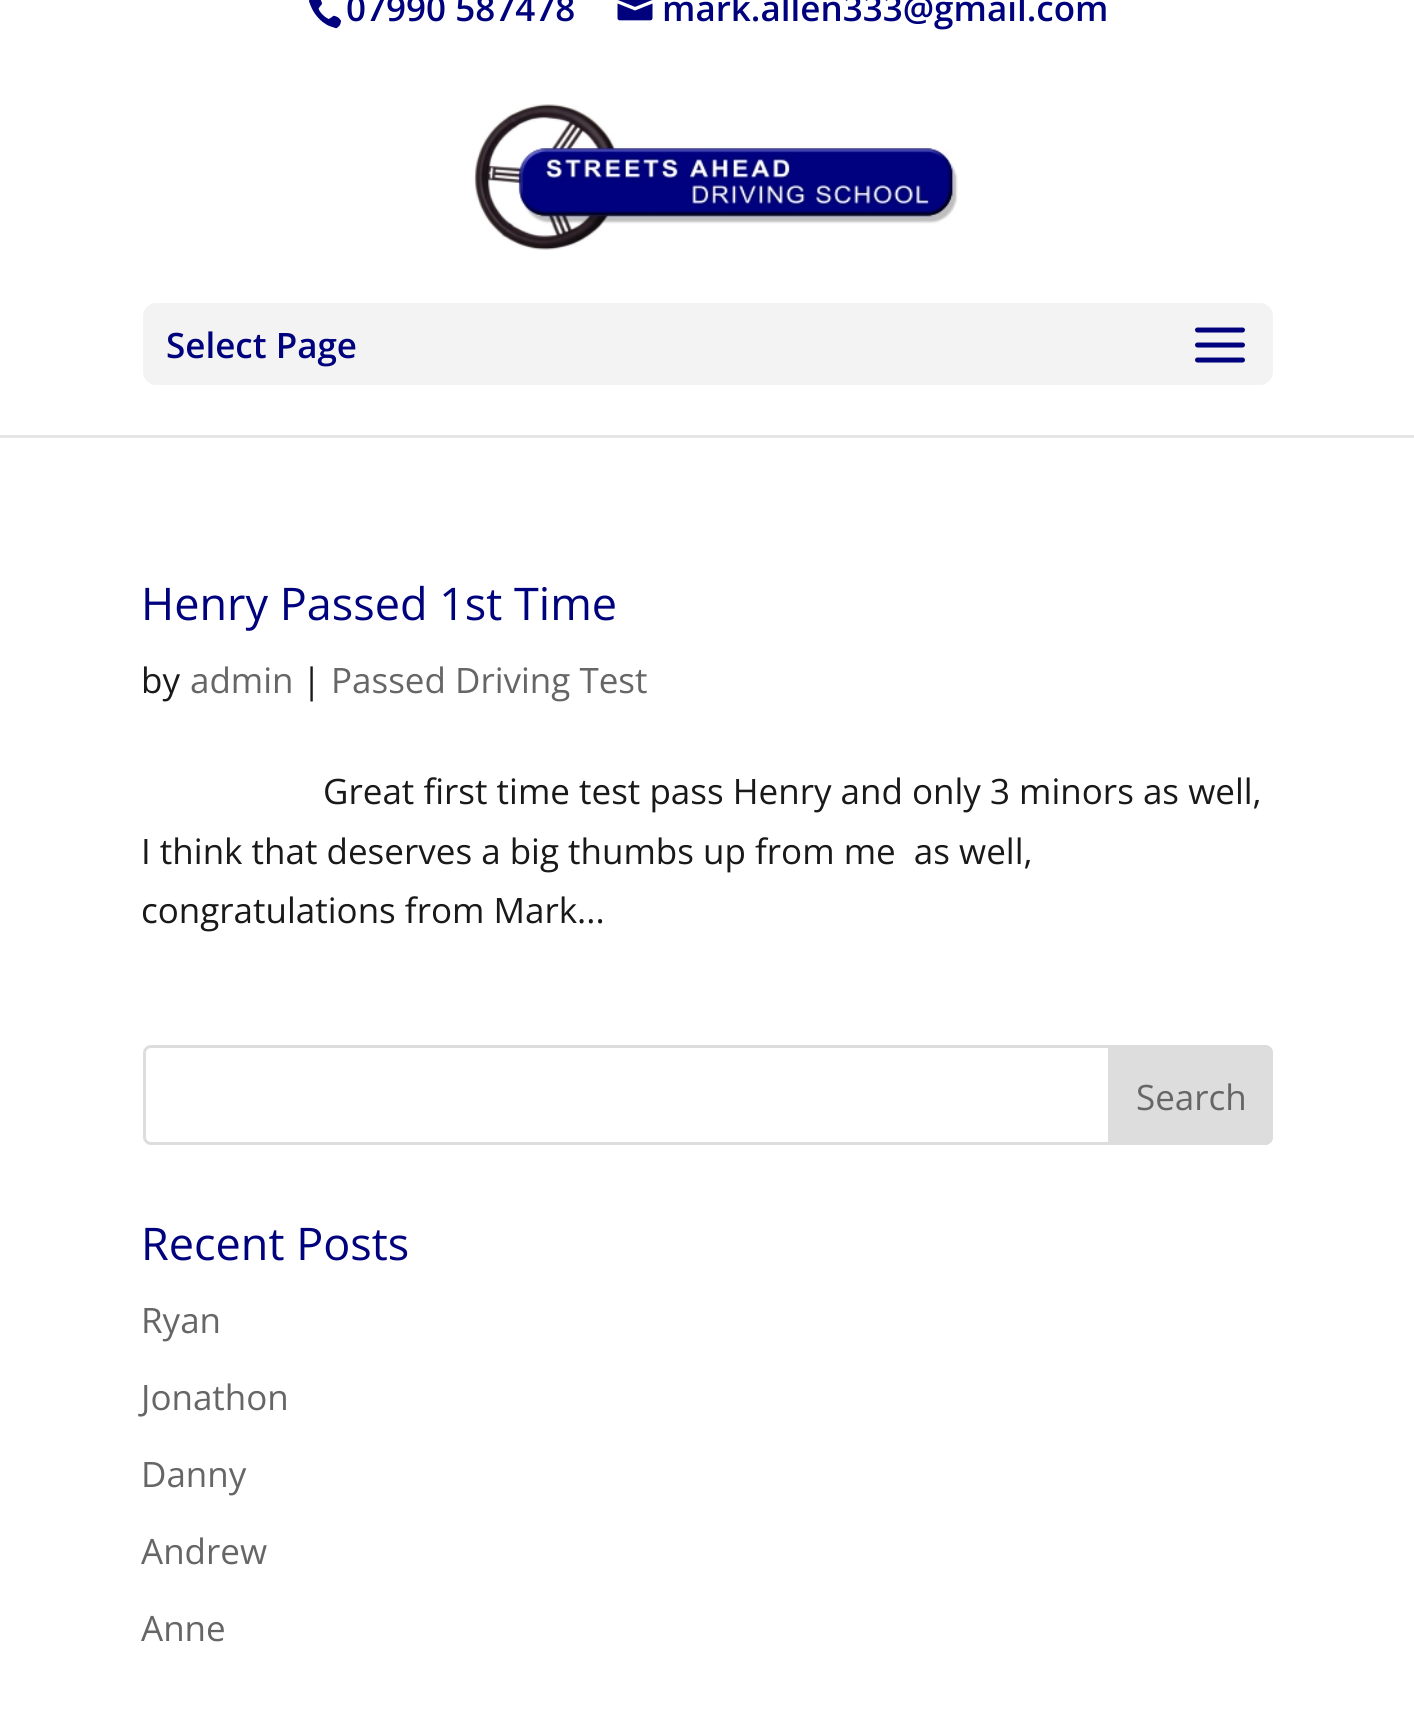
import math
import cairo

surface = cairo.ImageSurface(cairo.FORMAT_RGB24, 1414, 1712)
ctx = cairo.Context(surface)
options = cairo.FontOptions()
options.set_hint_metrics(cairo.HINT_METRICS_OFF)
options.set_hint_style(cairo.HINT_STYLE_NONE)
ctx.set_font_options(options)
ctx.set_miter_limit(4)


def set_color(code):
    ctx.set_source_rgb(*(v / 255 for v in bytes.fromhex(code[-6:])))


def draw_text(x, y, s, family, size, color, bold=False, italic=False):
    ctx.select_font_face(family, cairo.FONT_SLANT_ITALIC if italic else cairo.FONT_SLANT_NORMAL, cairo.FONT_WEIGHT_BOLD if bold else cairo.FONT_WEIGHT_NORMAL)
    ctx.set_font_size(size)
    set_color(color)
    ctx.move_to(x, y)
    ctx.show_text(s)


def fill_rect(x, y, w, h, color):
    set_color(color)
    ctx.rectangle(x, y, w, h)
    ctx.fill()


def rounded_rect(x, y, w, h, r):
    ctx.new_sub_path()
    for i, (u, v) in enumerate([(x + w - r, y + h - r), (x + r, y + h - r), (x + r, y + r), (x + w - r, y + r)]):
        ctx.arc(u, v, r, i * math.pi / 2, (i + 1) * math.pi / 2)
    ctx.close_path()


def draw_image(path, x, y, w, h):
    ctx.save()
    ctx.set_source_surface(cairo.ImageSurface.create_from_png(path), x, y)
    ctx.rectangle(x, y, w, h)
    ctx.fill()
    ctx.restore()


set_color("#ffffff")
ctx.paint()
draw_image("assets/img1.png", 309, 0, 32, 29)
draw_text(346, 21, "07990 587478", "Open Sans SemiBold", 35, "#00027d")
draw_image("assets/img2.png", 617, 0, 36, 21)
draw_text(662, 21, "mark.allen333@gmail.com", "Open Sans SemiBold", 35, "#00027d")
fill_rect(0, 435, 1414, 3, "#e6e6e6")
draw_image("assets/img3.png", 474, 104, 484, 146)
set_color("#f3f3f3")
rounded_rect(143, 303, 1130, 82, 13)
ctx.fill()
draw_text(166, 358, "Select Page", "Open Sans SemiBold", 35, "#00027d")
draw_image("assets/img4.png", 1195, 327, 50, 36)
draw_text(141, 620, "Henry Passed 1st Time", "Open Sans", 45, "#00027d")
draw_text(141, 693, "by", "Open Sans", 35, "#191919")
draw_text(190, 693, "admin", "Open Sans", 35, "#666666")
draw_text(302, 693, "|", "Open Sans", 35, "#191919")
draw_text(331, 693, "Passed Driving Test", "Open Sans", 35, "#666666")
draw_text(323, 804, "Great first time test pass Henry and only 3 minors as well,", "Open Sans", 35, "#191919")
draw_text(141, 864, "I think that deserves a big thumbs up from me  as well,", "Open Sans", 35, "#191919")
draw_text(141, 923, "congratulations from Mark...", "Open Sans", 35, "#191919")
rounded_rect(144.5, 1046.5, 1127, 97, 6.5)
set_color("#dddddd")
ctx.set_line_width(3)
ctx.stroke()
ctx.new_path()
ctx.move_to(1109.5, 1046.5)
ctx.line_to(1265, 1046.5)
ctx.curve_to(1268.5, 1046.5, 1271.5, 1049.5, 1271.5, 1053)
ctx.line_to(1271.5, 1137)
ctx.curve_to(1271.5, 1140.5, 1268.5, 1143.5, 1265, 1143.5)
ctx.line_to(1109.5, 1143.5)
ctx.close_path()
ctx.fill_preserve()
ctx.stroke()
draw_text(1136, 1110, "Search", "Open Sans", 35, "#666666")
draw_text(141, 1260, "Recent Posts", "Open Sans", 45, "#00027d")
draw_text(141, 1333, "Ryan", "Open Sans", 35, "#666666")
draw_text(141, 1410, "Jonathon", "Open Sans", 35, "#666666")
draw_text(141, 1487, "Danny", "Open Sans", 35, "#666666")
draw_text(141, 1564, "Andrew", "Open Sans", 35, "#666666")
draw_text(141, 1641, "Anne", "Open Sans", 35, "#666666")
surface.write_to_png("output.png")
